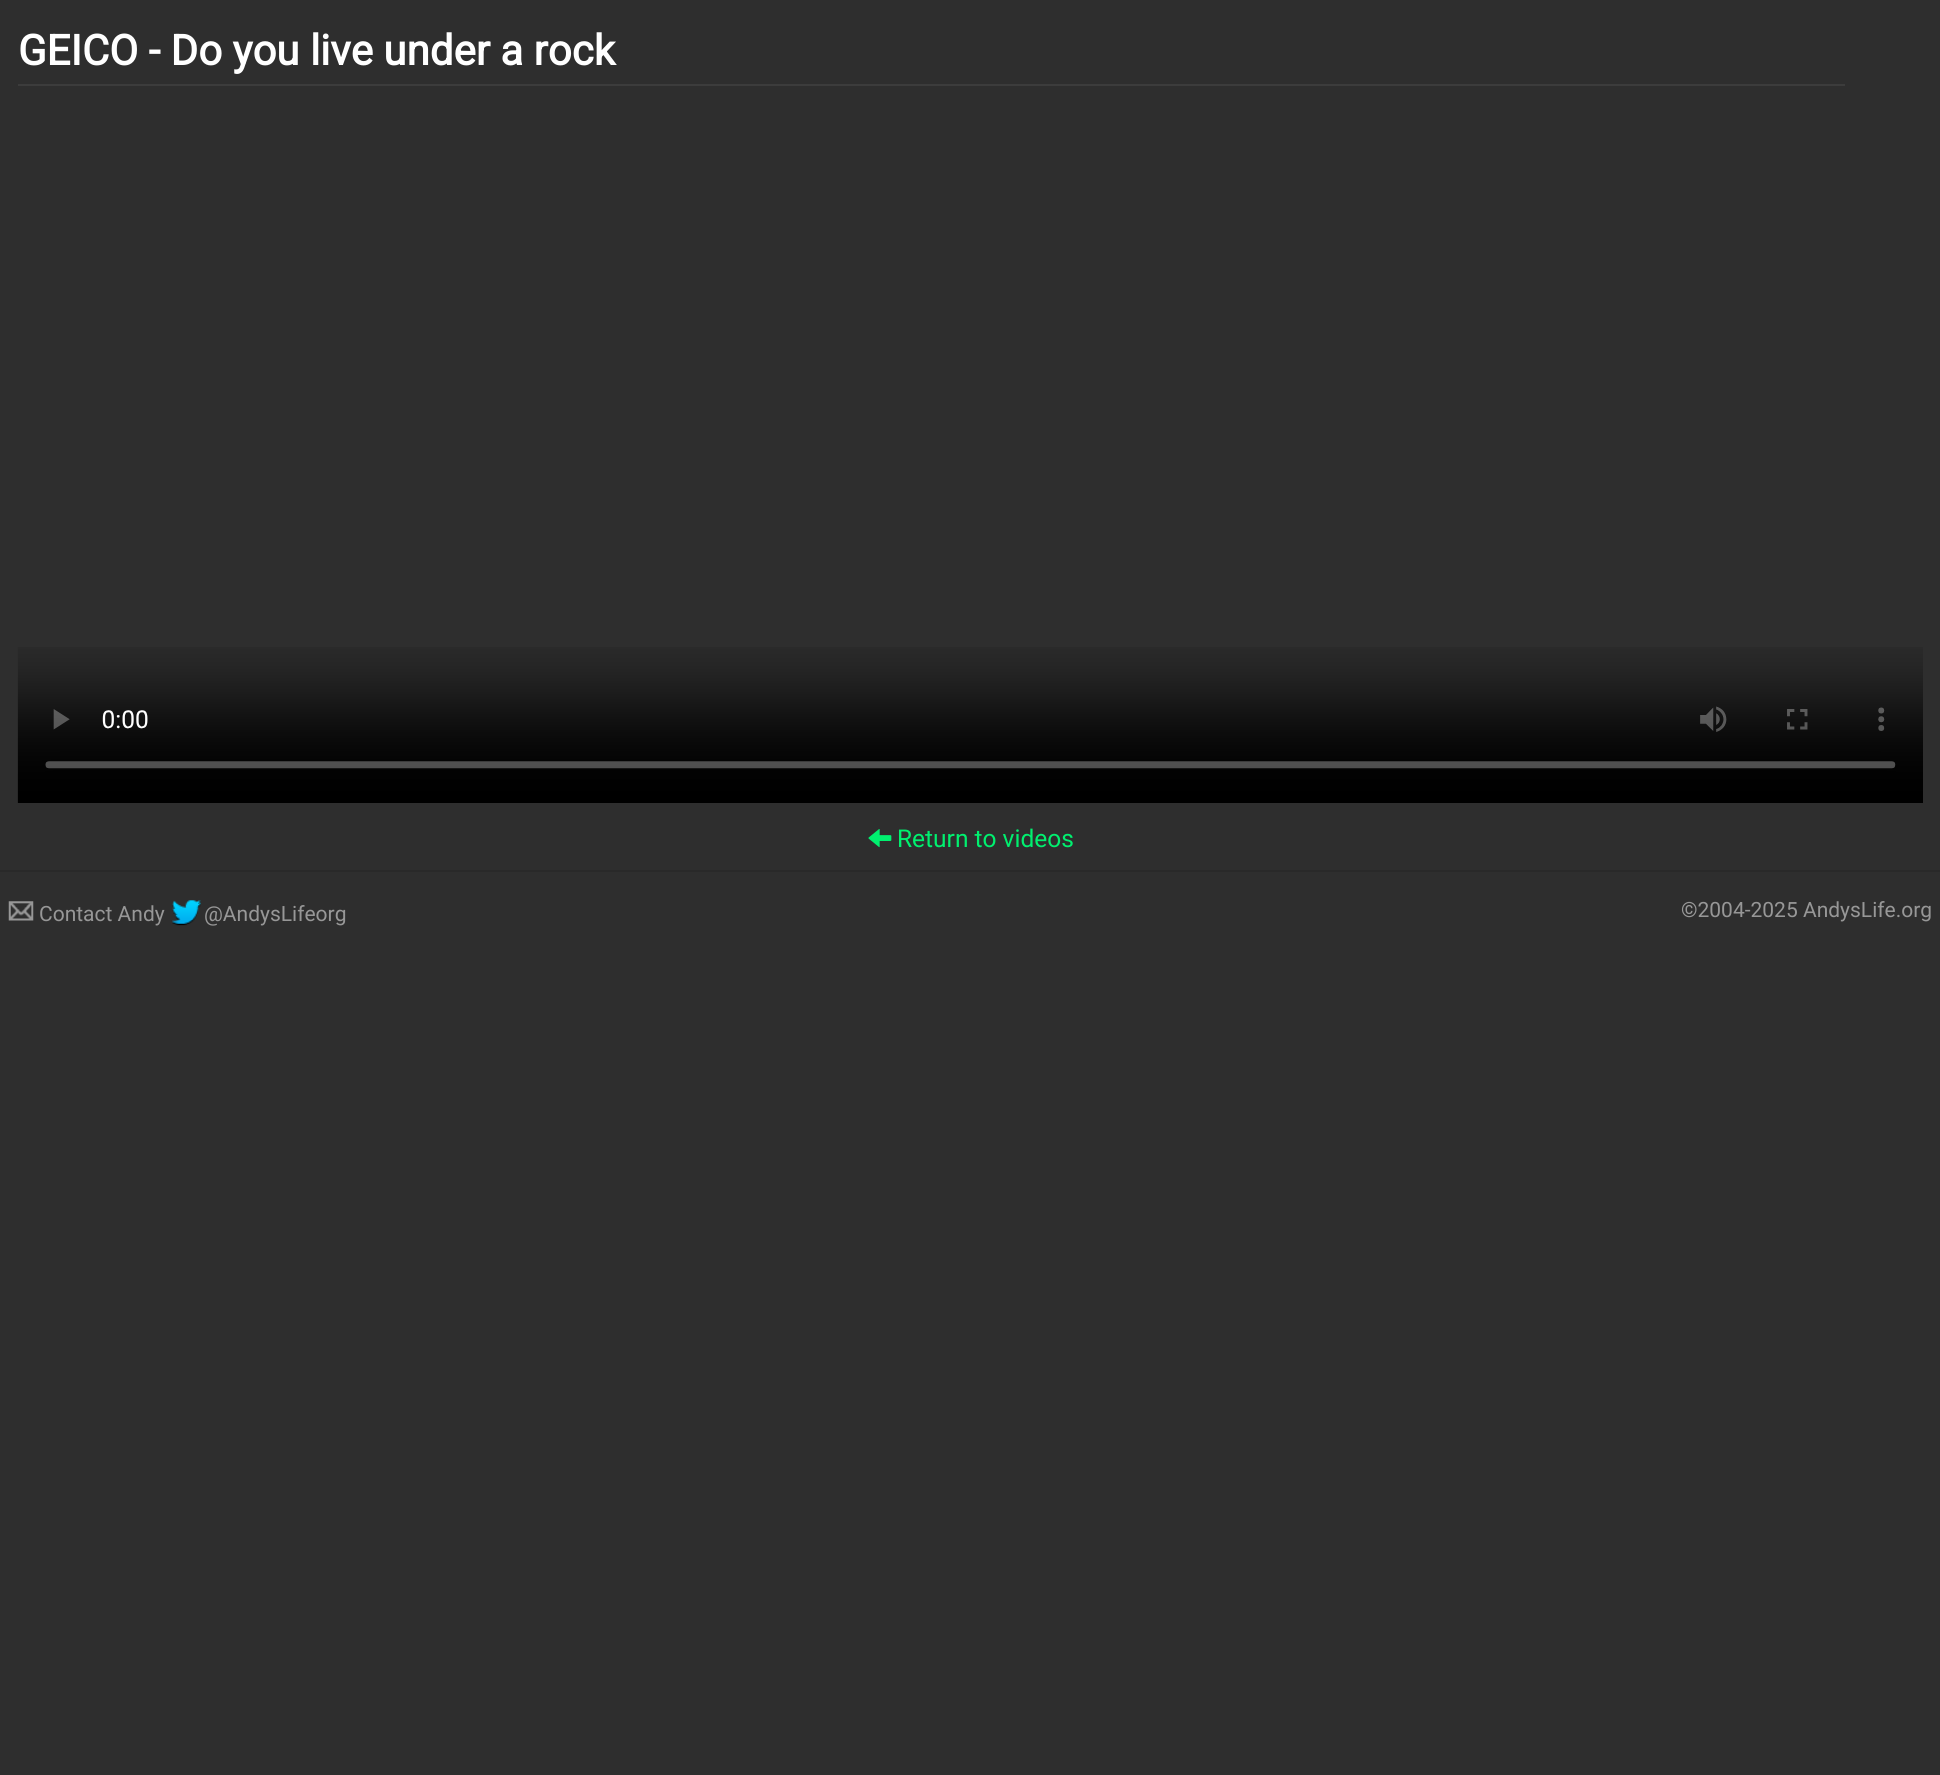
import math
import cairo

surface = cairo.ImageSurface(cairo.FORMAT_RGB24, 1940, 1775)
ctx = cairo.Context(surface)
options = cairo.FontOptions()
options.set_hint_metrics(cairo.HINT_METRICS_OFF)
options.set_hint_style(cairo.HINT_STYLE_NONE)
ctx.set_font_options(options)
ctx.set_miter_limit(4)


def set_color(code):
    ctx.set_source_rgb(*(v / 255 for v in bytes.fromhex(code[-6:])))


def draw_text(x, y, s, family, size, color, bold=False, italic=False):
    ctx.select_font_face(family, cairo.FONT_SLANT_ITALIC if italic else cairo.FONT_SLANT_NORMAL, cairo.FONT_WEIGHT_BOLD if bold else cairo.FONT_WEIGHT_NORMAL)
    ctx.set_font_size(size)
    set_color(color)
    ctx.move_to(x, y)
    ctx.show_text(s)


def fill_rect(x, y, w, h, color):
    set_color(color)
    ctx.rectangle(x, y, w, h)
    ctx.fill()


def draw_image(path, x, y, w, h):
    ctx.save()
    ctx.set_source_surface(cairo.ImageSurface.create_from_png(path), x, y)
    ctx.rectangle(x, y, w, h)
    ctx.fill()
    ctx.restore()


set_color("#2e2e2e")
ctx.paint()
fill_rect(18, 84, 1827, 2, "#3c3c3c")
draw_text(18, 65, "GEICO - Do you live under a rock", "Roboto", 42, "#ffffff", bold=True)
draw_image("assets/img1.png", 17, 647, 1906, 156)
draw_image("assets/img2.png", 868, 829, 24, 19)
draw_text(897, 847, "Return to videos", "Roboto", 24.5, "#00f06f")
fill_rect(0, 870, 1940, 2, "#292929")
draw_image("assets/img3.png", 8, 901, 26, 20)
draw_text(39, 921, "Contact Andy", "Roboto", 21, "#979797")
draw_image("assets/img4.png", 172, 900, 29, 26)
draw_text(204, 921, "@AndysLifeorg", "Roboto", 21, "#979797")
draw_text(1681, 917, "©2004-2025 AndysLife.org", "Roboto", 21, "#979797")
surface.write_to_png("output.png")
